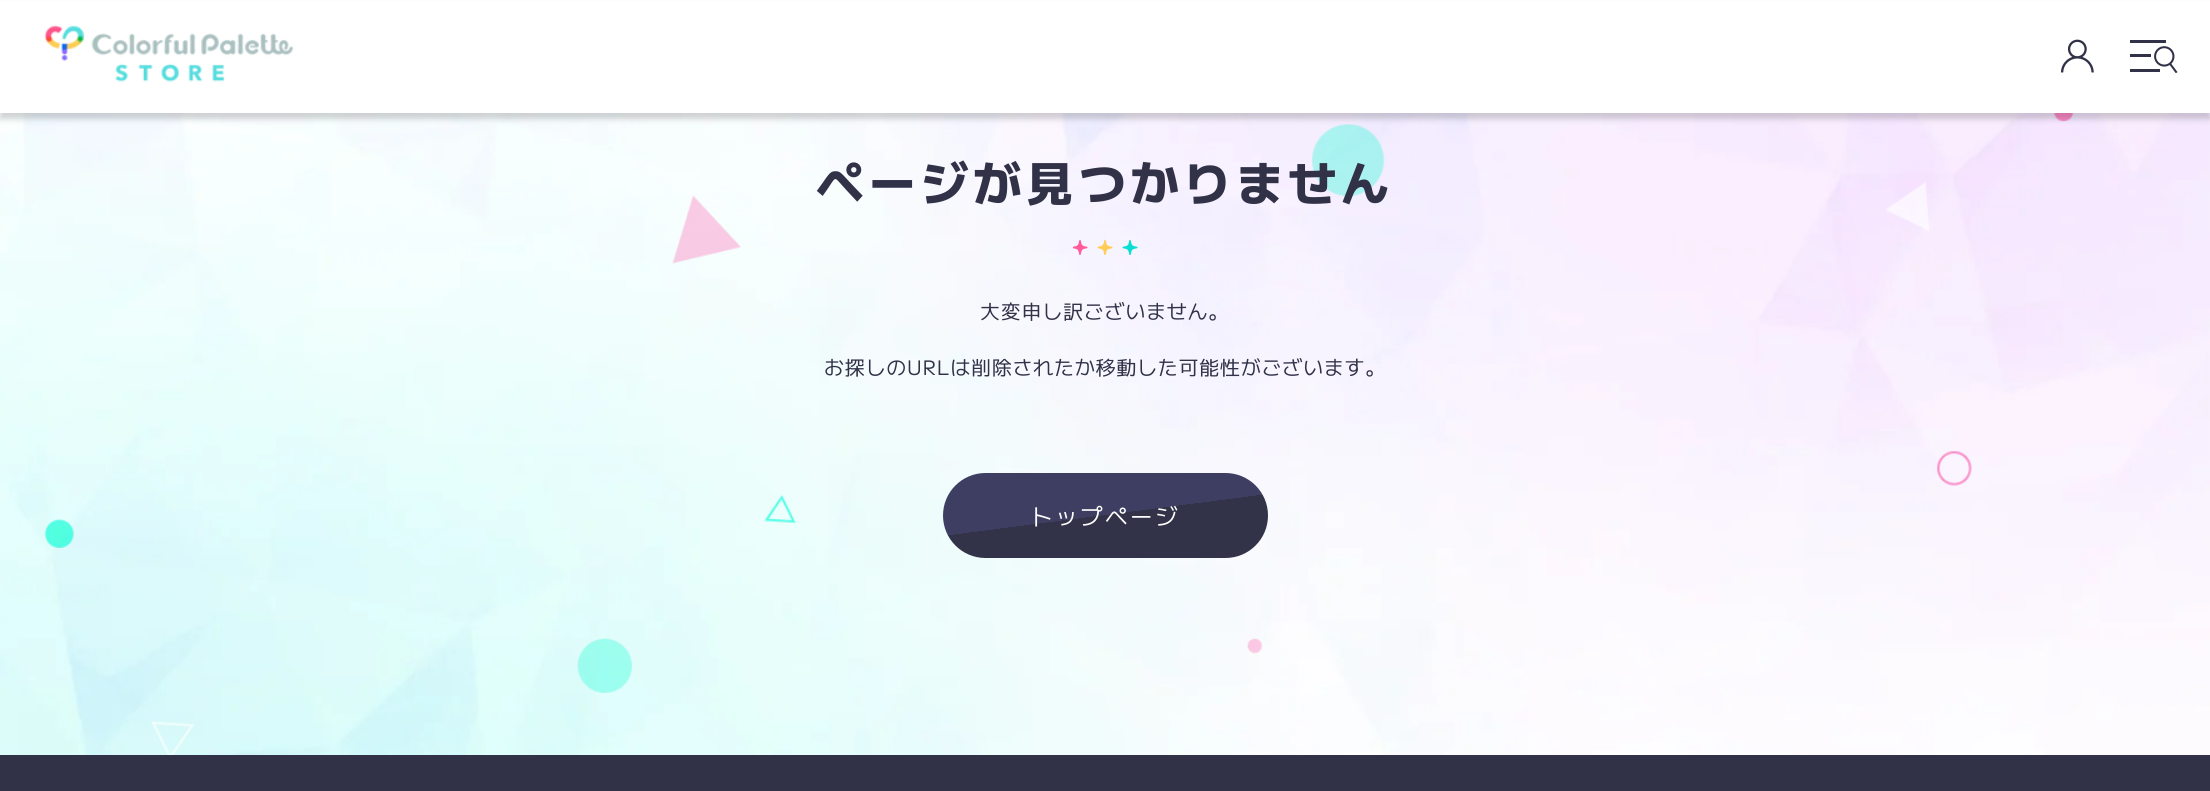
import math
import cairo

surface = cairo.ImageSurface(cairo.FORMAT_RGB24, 2210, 791)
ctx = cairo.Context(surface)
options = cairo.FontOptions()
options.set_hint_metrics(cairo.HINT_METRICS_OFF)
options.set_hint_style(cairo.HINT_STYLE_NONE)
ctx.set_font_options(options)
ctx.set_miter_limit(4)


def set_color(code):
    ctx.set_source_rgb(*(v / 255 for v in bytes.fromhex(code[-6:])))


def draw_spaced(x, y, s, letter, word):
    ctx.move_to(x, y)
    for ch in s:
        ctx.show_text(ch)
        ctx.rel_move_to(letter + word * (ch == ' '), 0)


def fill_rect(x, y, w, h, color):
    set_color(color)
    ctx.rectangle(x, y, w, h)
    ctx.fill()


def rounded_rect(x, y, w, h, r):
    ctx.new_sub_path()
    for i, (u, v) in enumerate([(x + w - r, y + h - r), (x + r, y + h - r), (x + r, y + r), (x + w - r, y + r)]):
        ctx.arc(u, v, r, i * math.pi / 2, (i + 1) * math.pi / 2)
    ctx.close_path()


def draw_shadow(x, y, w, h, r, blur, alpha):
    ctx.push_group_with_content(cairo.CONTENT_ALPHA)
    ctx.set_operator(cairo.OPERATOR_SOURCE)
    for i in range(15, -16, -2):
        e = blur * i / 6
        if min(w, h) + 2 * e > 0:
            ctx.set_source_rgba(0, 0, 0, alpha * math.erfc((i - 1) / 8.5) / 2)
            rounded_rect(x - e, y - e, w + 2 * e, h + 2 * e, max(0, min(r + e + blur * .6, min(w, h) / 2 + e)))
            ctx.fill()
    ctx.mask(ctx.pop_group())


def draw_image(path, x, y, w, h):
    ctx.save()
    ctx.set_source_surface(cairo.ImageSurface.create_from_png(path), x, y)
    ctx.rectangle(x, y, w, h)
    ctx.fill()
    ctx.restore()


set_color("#ffffff")
ctx.paint()
draw_image("assets/img1.png", 0, 113, 2210, 642)
draw_image("assets/img6.png", 577, 124, 808, 621)
draw_image("assets/img5.png", 44, 113, 2030, 642)
set_color("#1e1e1e")
draw_shadow(0, 6, 2210, 113, 0, 3, 0.2)
fill_rect(0, 1, 2210, 112, "#ffffff")
draw_image("assets/img2.png", 44, 25, 250, 57)
draw_image("assets/img3.png", 2061, 39, 33, 34)
draw_image("assets/img4.png", 2130, 40, 48, 33)
draw_image("assets/img7.png", 1073, 240, 65, 15)
ctx.select_font_face("M PLUS 1 ExtraBold")
ctx.set_font_size(47.5)
set_color("#313148")
draw_spaced(816, 201, "ページが見つかりません", 5, 0)
ctx.select_font_face("M PLUS 1")
ctx.set_font_size(20)
draw_spaced(980, 319, "大変申し訳ございません。", 0.75, 0)
draw_spaced(824, 375, "お探しのURLは削除されたか移動した可能性がございます。", 0.75, 0)
gradient = cairo.LinearGradient(1097, 453, 1113, 577)
gradient.add_color_stop_rgba(0, 0.243, 0.243, 0.384, 1)
gradient.add_color_stop_rgba(0.5, 0.243, 0.243, 0.384, 1)
gradient.add_color_stop_rgba(0.5, 0.196, 0.196, 0.282, 1)
gradient.add_color_stop_rgba(1, 0.196, 0.196, 0.282, 1)
ctx.set_source(gradient)
rounded_rect(943, 473, 325, 85, 42.5)
ctx.fill()
ctx.set_font_size(22.5)
set_color("#ffffff")
draw_spaced(1030, 525, "トップページ", 2.5, 0)
fill_rect(0, 755, 2210, 36, "#313148")
surface.write_to_png("output.png")
